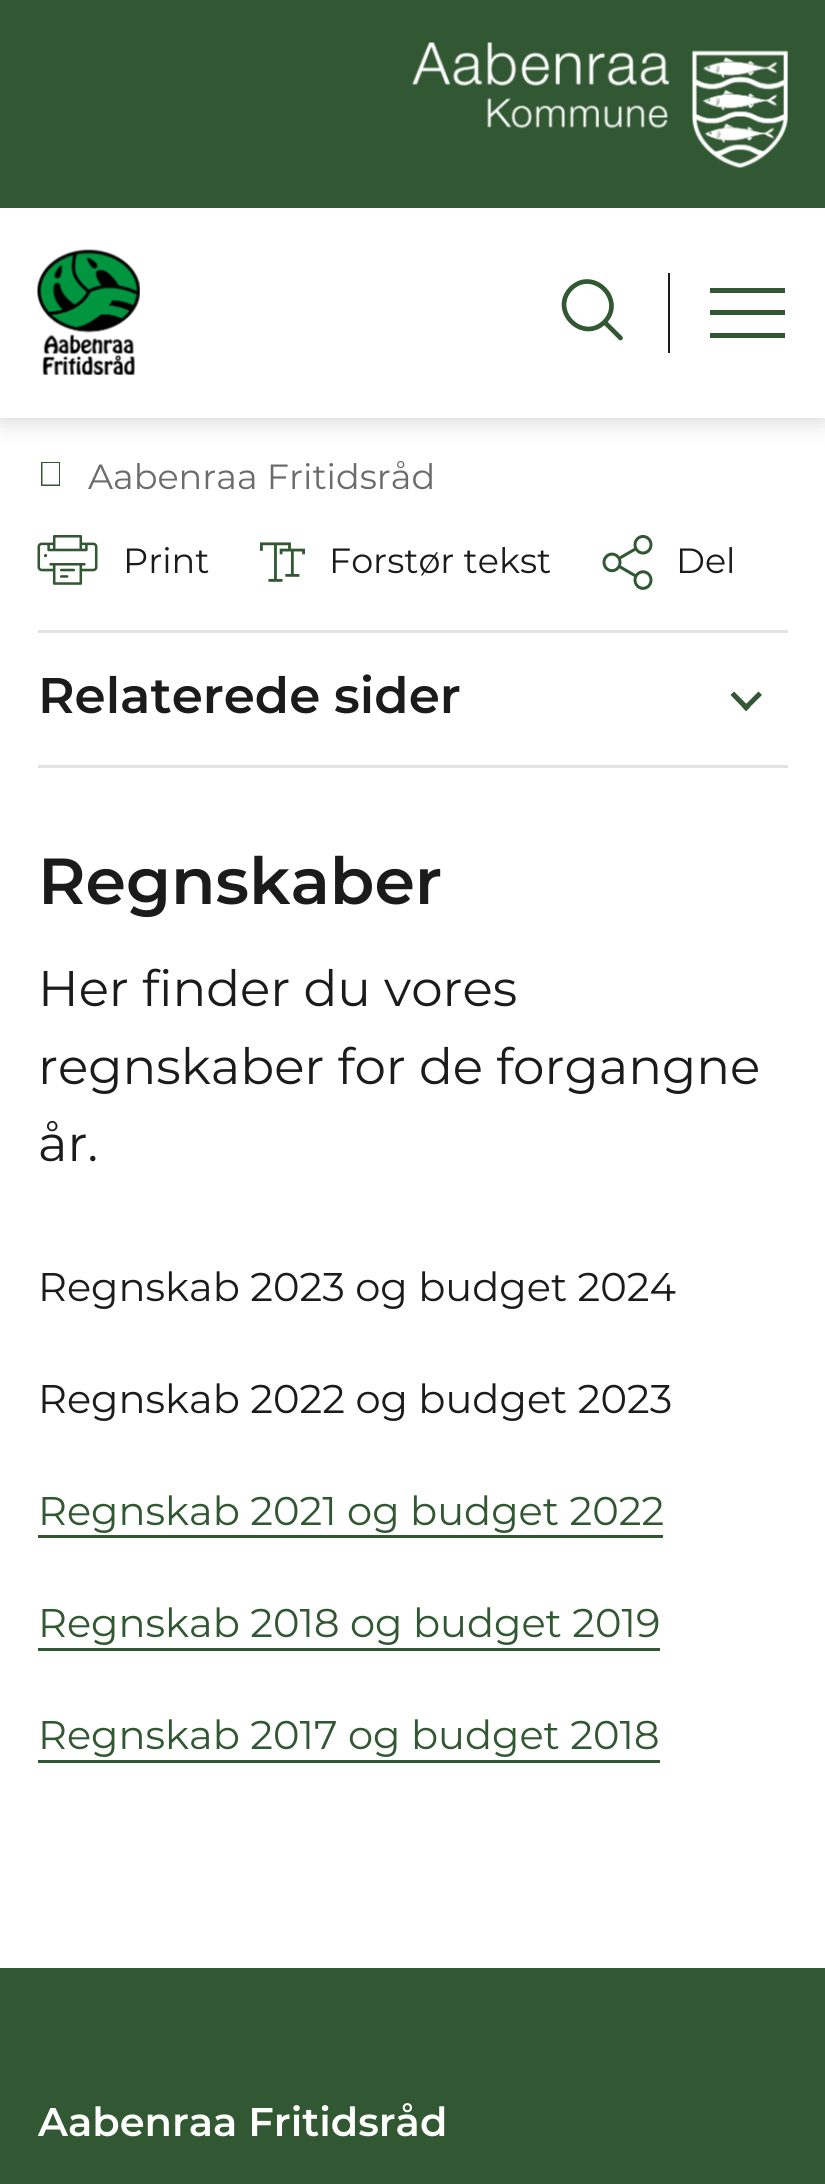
import math
import cairo

surface = cairo.ImageSurface(cairo.FORMAT_RGB24, 825, 2184)
ctx = cairo.Context(surface)
options = cairo.FontOptions()
options.set_hint_metrics(cairo.HINT_METRICS_OFF)
options.set_hint_style(cairo.HINT_STYLE_NONE)
ctx.set_font_options(options)
ctx.set_miter_limit(4)


def set_color(code):
    ctx.set_source_rgb(*(v / 255 for v in bytes.fromhex(code[-6:])))


def draw_text(x, y, s, family, size, color, bold=False, italic=False):
    ctx.select_font_face(family, cairo.FONT_SLANT_ITALIC if italic else cairo.FONT_SLANT_NORMAL, cairo.FONT_WEIGHT_BOLD if bold else cairo.FONT_WEIGHT_NORMAL)
    ctx.set_font_size(size)
    set_color(color)
    ctx.move_to(x, y)
    ctx.show_text(s)


def fill_rect(x, y, w, h, color):
    set_color(color)
    ctx.rectangle(x, y, w, h)
    ctx.fill()


def rounded_rect(x, y, w, h, r):
    ctx.new_sub_path()
    for i, (u, v) in enumerate([(x + w - r, y + h - r), (x + r, y + h - r), (x + r, y + r), (x + w - r, y + r)]):
        ctx.arc(u, v, r, i * math.pi / 2, (i + 1) * math.pi / 2)
    ctx.close_path()


def draw_shadow(x, y, w, h, r, blur, alpha):
    ctx.push_group_with_content(cairo.CONTENT_ALPHA)
    ctx.set_operator(cairo.OPERATOR_SOURCE)
    for i in range(15, -16, -2):
        e = blur * i / 6
        if min(w, h) + 2 * e > 0:
            ctx.set_source_rgba(0, 0, 0, alpha * math.erfc((i - 1) / 8.5) / 2)
            rounded_rect(x - e, y - e, w + 2 * e, h + 2 * e, max(0, min(r + e + blur * .6, min(w, h) / 2 + e)))
            ctx.fill()
    ctx.mask(ctx.pop_group())


def draw_image(path, x, y, w, h):
    ctx.save()
    ctx.set_source_surface(cairo.ImageSurface.create_from_png(path), x, y)
    ctx.rectangle(x, y, w, h)
    ctx.fill()
    ctx.restore()


set_color("#ffffff")
ctx.paint()
set_color("#000000")
draw_shadow(0, 208, 825, 210, 0, 12.5, 0.2)
fill_rect(0, 0, 825, 208, "#315832")
draw_image("assets/img1.png", 412, 42, 376, 126)
fill_rect(0, 208, 825, 210, "#ffffff")
draw_image("assets/img2.png", 37, 249, 103, 126)
fill_rect(668, 273, 2, 80, "#1b1b1b")
ctx.new_path()
ctx.move_to(620.5, 338)
ctx.line_to(604.5, 322)
ctx.move_to(604.5, 322)
ctx.curve_to(626, 300, 593, 267, 571, 288.5)
ctx.curve_to(549.5, 310.5, 582.5, 343.5, 604.5, 322)
ctx.close_path()
set_color("#315832")
ctx.set_line_width(4.7)
ctx.set_line_cap(cairo.LINE_CAP_ROUND)
ctx.set_line_join(cairo.LINE_JOIN_ROUND)
ctx.stroke()
fill_rect(710, 288, 75, 5, "#315832")
fill_rect(710, 310, 75, 5, "#315832")
fill_rect(710, 333, 75, 5, "#315832")
ctx.new_path()
ctx.move_to(60, 486)
ctx.line_to(41, 486)
ctx.line_to(41, 462)
ctx.line_to(60, 462)
ctx.close_path()
ctx.move_to(59, 484.5)
ctx.line_to(59, 463)
ctx.line_to(42.5, 463)
ctx.line_to(42.5, 484.5)
ctx.close_path()
ctx.fill()
draw_text(88, 489, "Aabenraa Fritidsråd", "Montserrat", 35, "#6b6b6b")
draw_image("assets/img3.png", 37, 535, 61, 50)
draw_text(123, 573, "Print", "Montserrat", 35, "#1b1b1b")
draw_image("assets/img4.png", 260, 542, 45, 40)
draw_text(329, 573, "Forstør tekst", "Montserrat", 35, "#1b1b1b")
draw_image("assets/img5.png", 602, 534, 51, 56)
draw_text(676, 573, "Del", "Montserrat", 35, "#1b1b1b")
fill_rect(38, 765, 750, 3, "#e3e3e3")
fill_rect(38, 630, 750, 3, "#e3e3e3")
draw_text(38, 713, "Relaterede sider", "Montserrat SemiBold", 50, "#1b1b1b")
set_color("#315832")
ctx.new_path()
ctx.move_to(762, 695)
ctx.line_to(746, 711)
ctx.line_to(742.5, 707.5)
ctx.line_to(758.5, 691.5)
ctx.close_path()
ctx.fill()
ctx.new_path()
ctx.move_to(750, 707.5)
ctx.line_to(746, 711)
ctx.line_to(730.5, 695)
ctx.line_to(734, 691.5)
ctx.close_path()
ctx.fill()
draw_text(38, 904, "Regnskaber", "Montserrat SemiBold", 65, "#1b1b1b")
draw_text(38, 1006, "Her finder du vores", "Montserrat", 50, "#1b1b1b")
draw_text(38, 1084, "regnskaber for de forgangne", "Montserrat", 50, "#1b1b1b")
draw_text(38, 1161, "år.", "Montserrat", 50, "#1b1b1b")
draw_text(38, 1301, "Regnskab 2023 og budget 2024", "Montserrat", 40, "#1b1b1b")
draw_text(38, 1413, "Regnskab 2022 og budget 2023", "Montserrat", 40, "#1b1b1b")
draw_text(38, 1525, "Regnskab 2021 og budget 2022", "Montserrat", 40, "#315832")
fill_rect(38, 1535, 625, 3, "#315832")
draw_text(38, 1637, "Regnskab 2018 og budget 2019", "Montserrat", 40, "#315832")
fill_rect(38, 1648, 622, 3, "#315832")
draw_text(38, 1749, "Regnskab 2017 og budget 2018", "Montserrat", 40, "#315832")
fill_rect(38, 1760, 622, 3, "#315832")
fill_rect(0, 1968, 825, 216, "#315832")
draw_text(38, 2136, "Aabenraa Fritidsråd", "Montserrat SemiBold", 40, "#ffffff")
surface.write_to_png("output.png")
